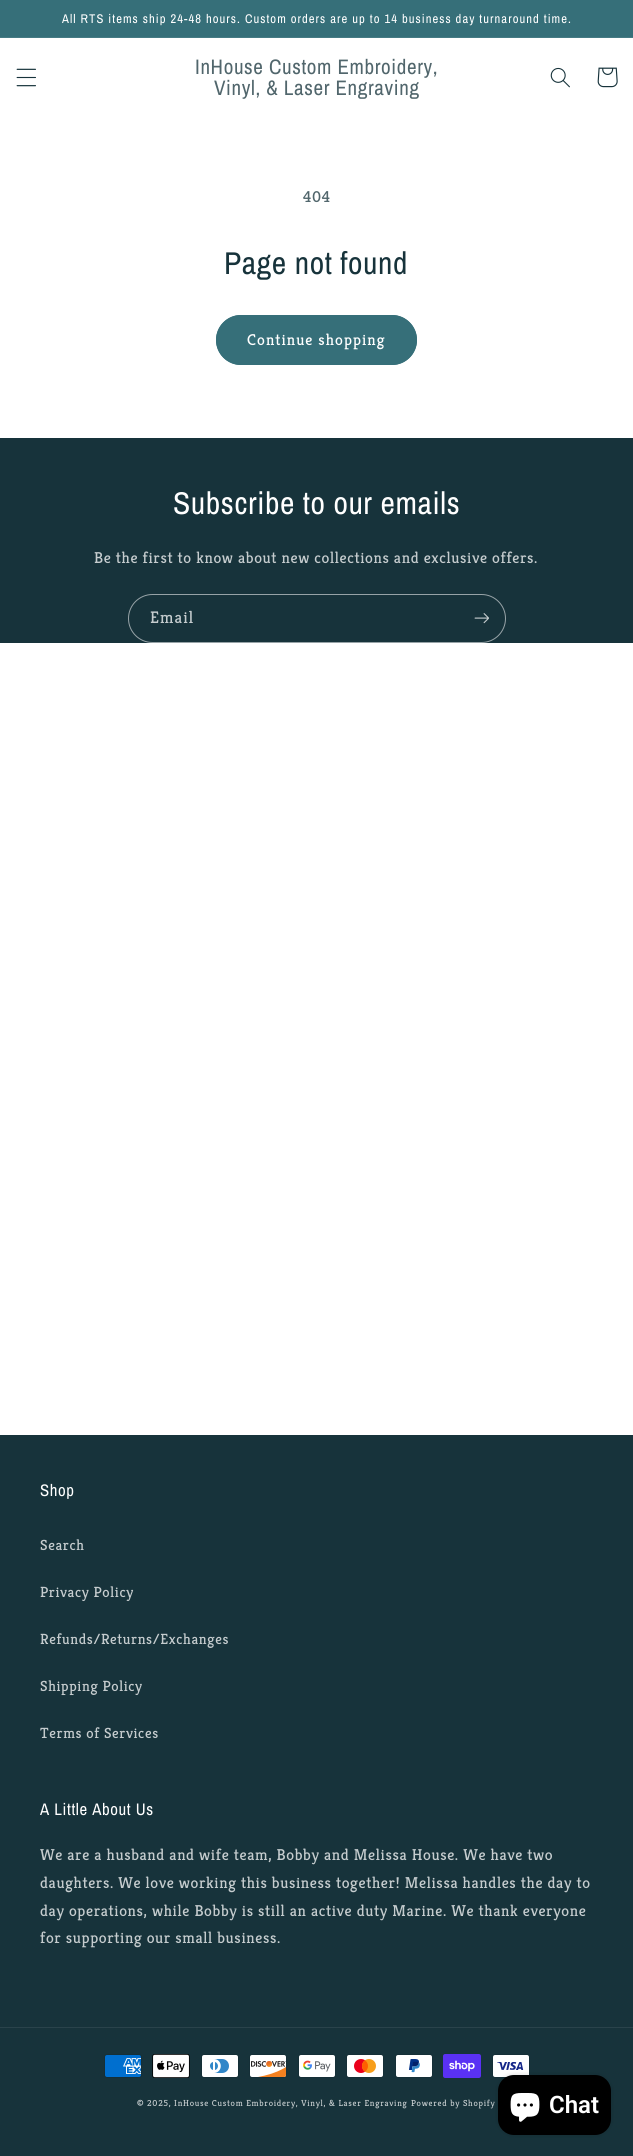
import math
import cairo

surface = cairo.ImageSurface(cairo.FORMAT_RGB24, 633, 2156)
ctx = cairo.Context(surface)
options = cairo.FontOptions()
options.set_hint_metrics(cairo.HINT_METRICS_OFF)
options.set_hint_style(cairo.HINT_STYLE_NONE)
ctx.set_font_options(options)
ctx.set_miter_limit(4)


def set_color(code):
    ctx.set_source_rgb(*(v / 255 for v in bytes.fromhex(code[-6:])))


def draw_text(x, y, s, family, size, color, bold=False, italic=False):
    ctx.select_font_face(family, cairo.FONT_SLANT_ITALIC if italic else cairo.FONT_SLANT_NORMAL, cairo.FONT_WEIGHT_BOLD if bold else cairo.FONT_WEIGHT_NORMAL)
    ctx.set_font_size(size)
    set_color(color)
    ctx.move_to(x, y)
    ctx.show_text(s)


def draw_spaced(x, y, s, letter, word):
    ctx.move_to(x, y)
    for ch in s:
        ctx.show_text(ch)
        ctx.rel_move_to(letter + word * (ch == ' '), 0)


def fill_rect(x, y, w, h, color):
    set_color(color)
    ctx.rectangle(x, y, w, h)
    ctx.fill()


def rounded_rect(x, y, w, h, r):
    ctx.new_sub_path()
    for i, (u, v) in enumerate([(x + w - r, y + h - r), (x + r, y + h - r), (x + r, y + r), (x + w - r, y + r)]):
        ctx.arc(u, v, r, i * math.pi / 2, (i + 1) * math.pi / 2)
    ctx.close_path()


def draw_shadow(x, y, w, h, r, blur, alpha):
    ctx.push_group_with_content(cairo.CONTENT_ALPHA)
    ctx.set_operator(cairo.OPERATOR_SOURCE)
    for i in range(15, -16, -2):
        e = blur * i / 6
        if min(w, h) + 2 * e > 0:
            ctx.set_source_rgba(0, 0, 0, alpha * math.erfc((i - 1) / 8.5) / 2)
            rounded_rect(x - e, y - e, w + 2 * e, h + 2 * e, max(0, min(r + e + blur * .6, min(w, h) / 2 + e)))
            ctx.fill()
    ctx.mask(ctx.pop_group())


def draw_image(path, x, y, w, h):
    ctx.save()
    ctx.set_source_surface(cairo.ImageSurface.create_from_png(path), x, y)
    ctx.rectangle(x, y, w, h)
    ctx.fill()
    ctx.restore()


set_color("#ffffff")
ctx.paint()
fill_rect(0, 0, 633, 37, "#366f79")
fill_rect(0, 37, 633, 1, "#467b84")
ctx.select_font_face("Archivo Narrow")
ctx.set_font_size(12.6)
set_color("#ffffff")
draw_spaced(62, 23, "All RTS items ship 24-48 hours. Custom orders are up to 14 business day turnaround time.", 1.05, 0)
draw_image("assets/img1.png", 16, 68, 20, 19)
ctx.set_font_size(21)
set_color("#51666c")
draw_spaced(195, 74, "InHouse Custom Embroidery,", 0.63, 0)
draw_spaced(214, 95, "Vinyl, & Laser Engraving", 0.63, 0)
draw_image("assets/img2.png", 550, 67, 20, 21)
draw_image("assets/img3.png", 597, 67, 21, 21)
ctx.select_font_face("Kreon")
ctx.set_font_size(15.75)
draw_spaced(303, 202, "404", 0.63, 0)
ctx.select_font_face("Archivo Narrow")
ctx.set_font_size(31.5)
set_color("#17333b")
draw_spaced(224, 274, "Page not found", 0.63, 0)
set_color("#366f79")
rounded_rect(216, 315, 201, 50, 25)
ctx.fill()
rounded_rect(216.5, 315.5, 200, 49, 24.5)
ctx.set_line_width(1)
ctx.stroke()
ctx.select_font_face("Kreon")
ctx.set_font_size(15.75)
set_color("#ffffff")
draw_spaced(247, 345, "Continue shopping", 1.05, 0)
fill_rect(0, 438, 633, 205, "#17333b")
ctx.select_font_face("Archivo Narrow")
ctx.set_font_size(31.5)
set_color("#ffffff")
draw_spaced(173, 514, "Subscribe to our emails", 0.63, 0)
ctx.select_font_face("Kreon")
ctx.set_font_size(15.75)
set_color("#c5ccce")
draw_spaced(94, 563, "Be the first to know about new collections and exclusive offers.", 0.63, 0)
rounded_rect(128.5, 594.5, 377, 48, 24)
set_color("#97a3a7")
ctx.stroke()
ctx.set_font_size(16.75)
set_color("#c5ccce")
draw_spaced(150, 623, "Email", 1.05, 0)
draw_image("assets/img4.png", 474, 613, 15, 11)
fill_rect(0, 1435, 633, 721, "#17333b")
ctx.select_font_face("Archivo Narrow")
set_color("#ffffff")
draw_spaced(40, 1496, "Shop", 0.63, 0)
ctx.select_font_face("Kreon")
ctx.set_font_size(14.75)
set_color("#c5ccce")
draw_spaced(40, 1550, "Search", 0.63, 0)
draw_spaced(40, 1597, "Privacy Policy", 0.63, 0)
draw_spaced(40, 1644, "Refunds/Returns/Exchanges", 0.63, 0)
draw_spaced(40, 1691, "Shipping Policy", 0.63, 0)
draw_spaced(40, 1738, "Terms of Services", 0.63, 0)
ctx.select_font_face("Archivo Narrow")
ctx.set_font_size(16.75)
set_color("#ffffff")
draw_spaced(40, 1815, "A Little About Us", 0.63, 0)
ctx.select_font_face("Kreon")
ctx.set_font_size(15.75)
set_color("#c5ccce")
draw_spaced(40, 1860, "We are a husband and wife team, Bobby and Melissa House. We have two", 0.63, 0)
draw_spaced(40, 1888, "daughters. We love working this business together! Melissa handles the day to", 0.63, 0)
draw_spaced(40, 1916, "day operations, while Bobby is still an active duty Marine. We thank everyone", 0.63, 0)
draw_spaced(40, 1943, "for supporting our small business.", 0.63, 0)
fill_rect(0, 2027, 633, 1, "#2a434b")
draw_image("assets/img5.png", 104, 2054, 38, 24)
draw_image("assets/img6.png", 152, 2054, 38, 24)
draw_image("assets/img7.png", 201, 2054, 38, 24)
draw_image("assets/img8.png", 249, 2054, 38, 24)
draw_image("assets/img9.png", 298, 2054, 38, 24)
draw_image("assets/img10.png", 346, 2054, 38, 24)
draw_image("assets/img11.png", 395, 2054, 38, 24)
draw_image("assets/img12.png", 443, 2054, 38, 24)
draw_image("assets/img13.png", 492, 2054, 38, 24)
ctx.set_font_size(8.75)
set_color("#c5ccce")
draw_spaced(137, 2106, "© 2025, InHouse Custom Embroidery, Vinyl, & Laser Engraving", 0.73, 0)
draw_spaced(411, 2106, "Powered by Shopify", 0.73, 0)
set_color("#000000")
draw_shadow(498, 2075, 113, 60, 16, 2.5, 0.15)
set_color("#000000")
rounded_rect(498, 2075, 113, 60, 16)
ctx.fill()
draw_image("assets/img14.png", 510, 2093, 30, 29)
draw_text(549, 2113, "Chat", "Roboto SemiBold", 24, "#ffffff")
surface.write_to_png("output.png")
